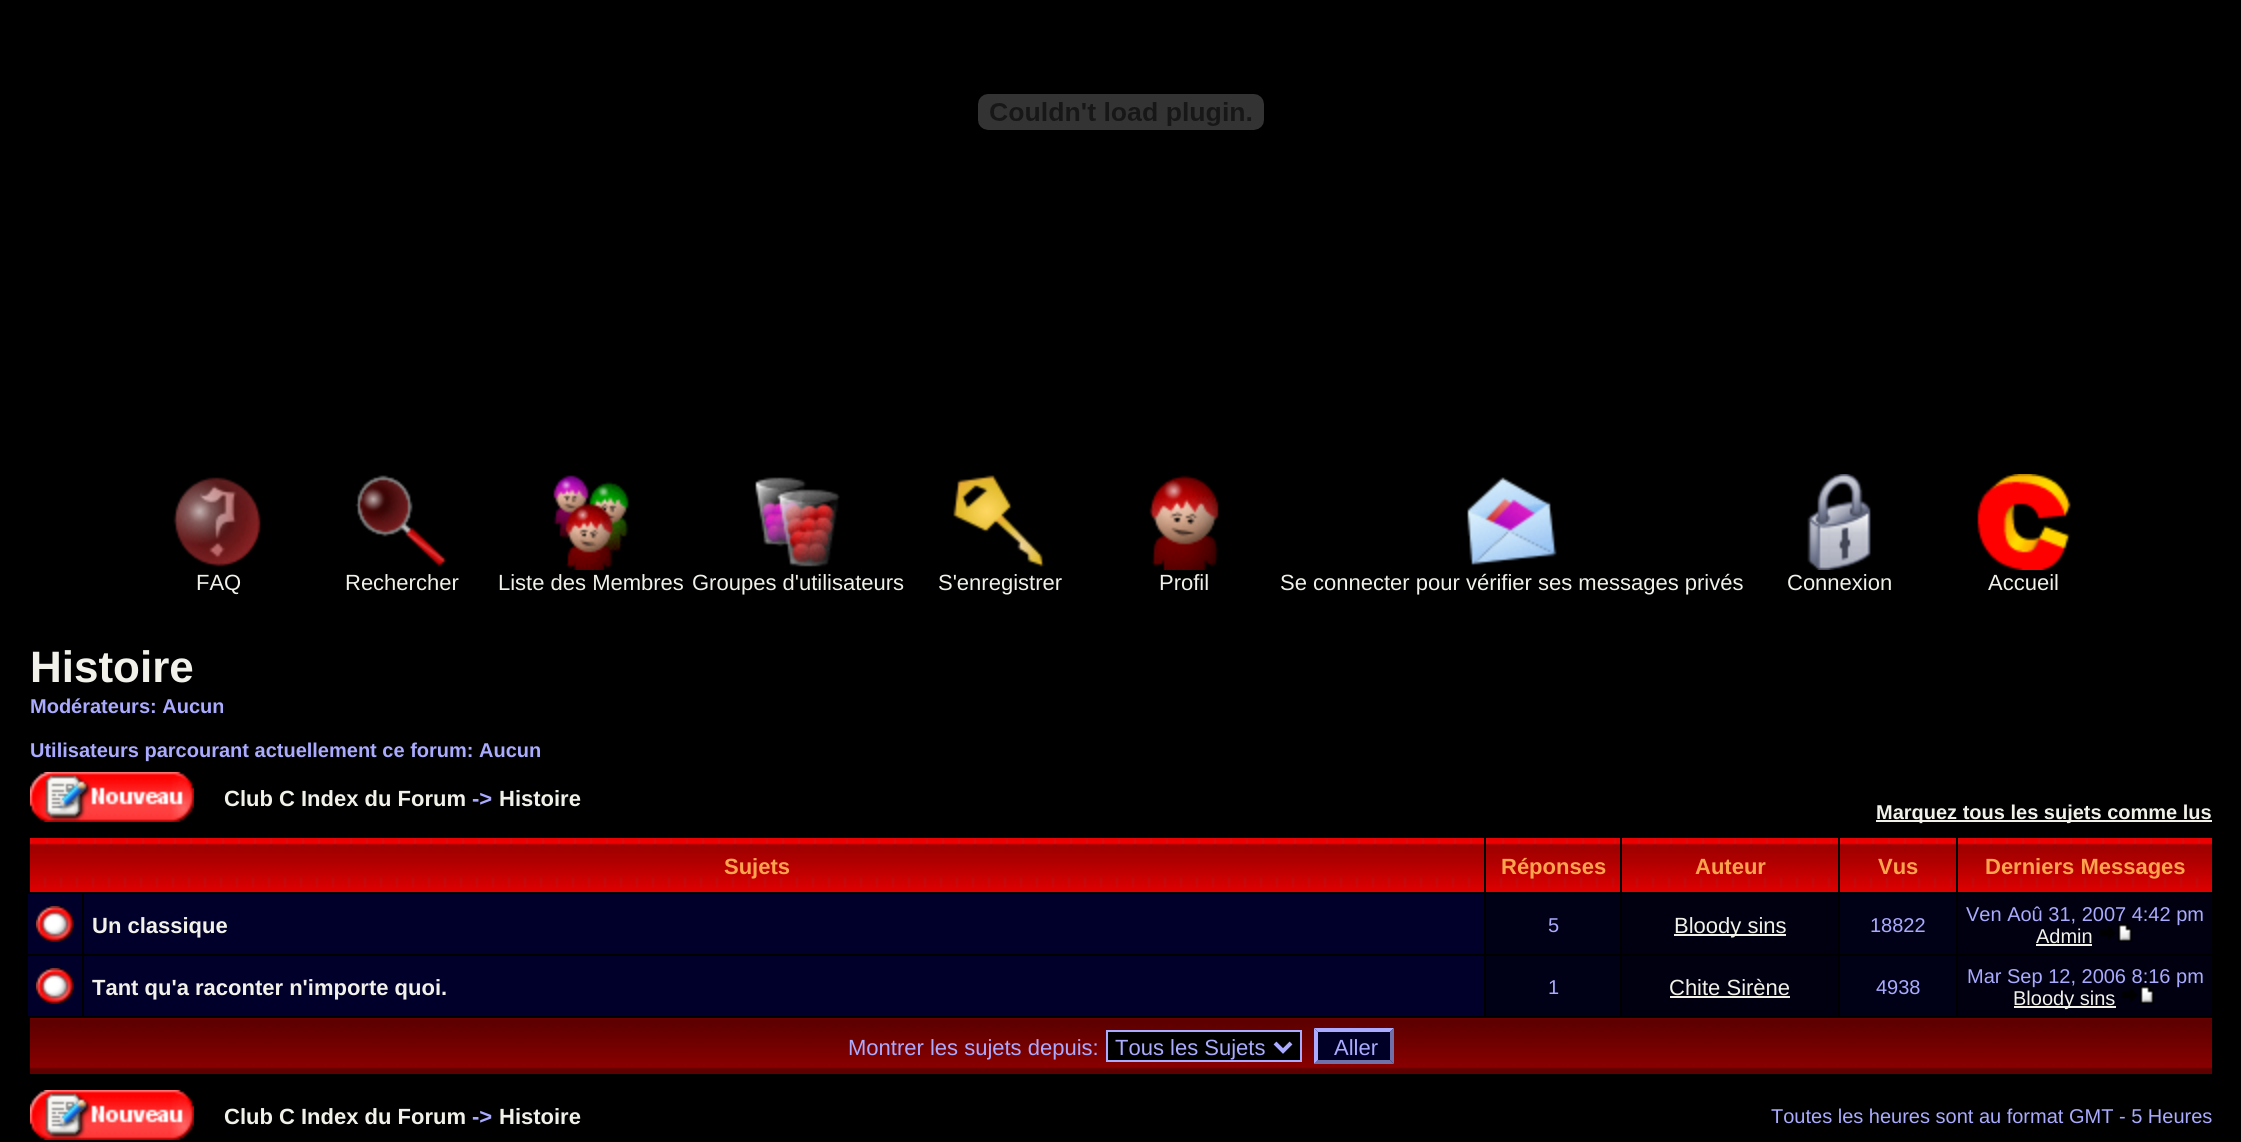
import math
import cairo

surface = cairo.ImageSurface(cairo.FORMAT_RGB24, 2241, 1142)
ctx = cairo.Context(surface)
options = cairo.FontOptions()
options.set_hint_metrics(cairo.HINT_METRICS_OFF)
options.set_hint_style(cairo.HINT_STYLE_NONE)
ctx.set_font_options(options)
ctx.set_miter_limit(4)


def set_color(code):
    ctx.set_source_rgb(*(v / 255 for v in bytes.fromhex(code[-6:])))


def draw_text(x, y, s, family, size, color, bold=False, italic=False):
    ctx.select_font_face(family, cairo.FONT_SLANT_ITALIC if italic else cairo.FONT_SLANT_NORMAL, cairo.FONT_WEIGHT_BOLD if bold else cairo.FONT_WEIGHT_NORMAL)
    ctx.set_font_size(size)
    set_color(color)
    ctx.move_to(x, y)
    ctx.show_text(s)


def fill_rect(x, y, w, h, color):
    set_color(color)
    ctx.rectangle(x, y, w, h)
    ctx.fill()


def draw_image(path, x, y, w, h):
    ctx.save()
    ctx.set_source_surface(cairo.ImageSurface.create_from_png(path), x, y)
    ctx.rectangle(x, y, w, h)
    ctx.fill()
    ctx.restore()


set_color("#000000")
ctx.paint()
draw_image("assets/img1.png", 978, 94, 286, 36)
draw_image("assets/img2.png", 173, 477, 88, 90)
draw_text(196, 590, "FAQ", "Liberation Sans", 22, "#f1f1e9")
draw_image("assets/img3.png", 355, 475, 92, 92)
draw_text(345, 590, "Rechercher", "Liberation Sans", 22, "#f1f1e9")
draw_image("assets/img4.png", 553, 475, 76, 95)
draw_text(498, 590, "Liste des Membres", "Liberation Sans", 22, "#f1f1e9")
draw_image("assets/img5.png", 755, 477, 85, 90)
draw_text(692, 590, "Groupes d'utilisateurs", "Liberation Sans", 22, "#f1f1e9")
draw_image("assets/img6.png", 953, 475, 92, 92)
draw_text(938, 590, "S'enregistrer", "Liberation Sans", 22, "#f1f1e9")
draw_image("assets/img7.png", 1149, 475, 70, 95)
draw_text(1159, 590, "Profil", "Liberation Sans", 22, "#f1f1e9")
draw_image("assets/img8.png", 1467, 477, 90, 89)
draw_text(1280, 590, "Se connecter pour vérifier ses messages privés", "Liberation Sans", 22, "#f1f1e9")
draw_image("assets/img9.png", 1807, 474, 64, 96)
draw_text(1787, 590, "Connexion", "Liberation Sans", 22, "#f1f1e9")
draw_image("assets/img10.png", 1977, 474, 94, 96)
draw_text(1988, 590, "Accueil", "Liberation Sans", 22, "#f1f1e9")
draw_text(30, 682, "Histoire", "Liberation Sans", 44, "#f1f1e9", bold=True)
draw_text(30, 713, "Modérateurs: Aucun", "Liberation Sans", 20, "#aaaaff", bold=True)
draw_text(30, 757, "Utilisateurs parcourant actuellement ce forum: Aucun", "Liberation Sans", 20, "#aaaaff", bold=True)
draw_image("assets/img11.png", 30, 772, 164, 50)
draw_text(224, 806, "Club C Index du Forum", "Liberation Sans", 22, "#f1f1e9", bold=True)
draw_text(472, 806, "->", "Liberation Sans", 22, "#aaaaff", bold=True)
draw_text(499, 806, "Histoire", "Liberation Sans", 22, "#f1f1e9", bold=True)
fill_rect(1876, 820, 336, 2, "#f1f1e9")
draw_text(1876, 819, "Marquez tous les sujets comme lus", "Liberation Sans", 20, "#f1f1e9", bold=True)
draw_image("assets/img12.png", 30, 838, 1454, 54)
draw_text(724, 874, "Sujets", "Liberation Sans", 22, "#ffa34f", bold=True)
draw_image("assets/img13.png", 1486, 838, 134, 54)
draw_text(1501, 874, "Réponses", "Liberation Sans", 22, "#ffa34f", bold=True)
draw_image("assets/img14.png", 1622, 838, 216, 54)
draw_text(1695, 874, "Auteur", "Liberation Sans", 22, "#ffa34f", bold=True)
draw_image("assets/img15.png", 1840, 838, 116, 54)
draw_text(1878, 874, "Vus", "Liberation Sans", 22, "#ffa34f", bold=True)
draw_image("assets/img16.png", 1958, 838, 254, 54)
draw_text(1985, 874, "Derniers Messages", "Liberation Sans", 22, "#ffa34f", bold=True)
fill_rect(28, 894, 54, 60, "#00002a")
draw_image("assets/img17.png", 36, 906, 38, 36)
fill_rect(84, 894, 1400, 60, "#00002a")
draw_text(92, 933, "Un classique", "Liberation Sans", 22, "#f1f1e9", bold=True)
fill_rect(1486, 894, 134, 60, "#000017")
draw_text(1548, 932, "5", "Liberation Sans", 20, "#aaaaff")
fill_rect(1622, 894, 216, 60, "#000011")
fill_rect(1674, 934, 112, 2, "#f1f1e9")
draw_text(1674, 933, "Bloody sins", "Liberation Sans", 22, "#f1f1e9")
fill_rect(1840, 894, 116, 60, "#000017")
draw_text(1870, 932, "18822", "Liberation Sans", 20, "#aaaaff")
fill_rect(1958, 894, 254, 60, "#000011")
draw_text(1966, 921, "Ven Aoû 31, 2007 4:42 pm", "Liberation Sans", 20, "#aaaaff")
draw_text(2036, 943, "Admin", "Liberation Sans", 20, "#f1f1e9")
fill_rect(2036, 944, 56, 2, "#f1f1e9")
draw_image("assets/img18.png", 2099, 924, 34, 18)
fill_rect(28, 956, 54, 60, "#00002a")
draw_image("assets/img17.png", 36, 968, 38, 36)
fill_rect(84, 956, 1400, 60, "#00002a")
draw_text(92, 995, "Tant qu'a raconter n'importe quoi.", "Liberation Sans", 22, "#f1f1e9", bold=True)
fill_rect(1486, 956, 134, 60, "#000017")
draw_text(1548, 994, "1", "Liberation Sans", 20, "#aaaaff")
fill_rect(1622, 956, 216, 60, "#000011")
draw_text(1669, 995, "Chite Sirène", "Liberation Sans", 22, "#f1f1e9")
fill_rect(1670, 996, 120, 2, "#f1f1e9")
fill_rect(1840, 956, 116, 60, "#000017")
draw_text(1876, 994, "4938", "Liberation Sans", 20, "#aaaaff")
fill_rect(1958, 956, 254, 60, "#000011")
draw_text(1967, 983, "Mar Sep 12, 2006 8:16 pm", "Liberation Sans", 20, "#aaaaff")
fill_rect(2014, 1006, 102, 2, "#f1f1e9")
draw_text(2013, 1005, "Bloody sins", "Liberation Sans", 20, "#f1f1e9")
draw_image("assets/img18.png", 2121, 986, 34, 18)
draw_image("assets/img19.png", 30, 1018, 2182, 56)
draw_text(848, 1055, "Montrer les sujets depuis:", "Liberation Sans", 22, "#aaaaff")
set_color("#000000")
ctx.rectangle(1107, 1031, 194, 30)
ctx.fill_preserve()
set_color("#aaaaff")
ctx.stroke()
ctx.new_path()
ctx.move_to(1275, 1043)
ctx.line_to(1283, 1051)
ctx.line_to(1291, 1043)
ctx.set_line_width(4)
ctx.stroke()
draw_text(1115, 1055, "Tous les Sujets", "Liberation Sans", 22, "#aaaaff")
fill_rect(1314, 1028, 80, 36, "#000027")
set_color("#aaaaff")
ctx.new_path()
ctx.move_to(1314, 1028)
ctx.line_to(1394, 1028)
ctx.line_to(1390, 1032)
ctx.line_to(1318, 1032)
ctx.close_path()
ctx.fill()
set_color("#7171aa")
ctx.new_path()
ctx.move_to(1394, 1028)
ctx.line_to(1394, 1064)
ctx.line_to(1390, 1060)
ctx.line_to(1390, 1032)
ctx.close_path()
ctx.fill()
ctx.new_path()
ctx.move_to(1394, 1064)
ctx.line_to(1314, 1064)
ctx.line_to(1318, 1060)
ctx.line_to(1390, 1060)
ctx.close_path()
ctx.fill()
set_color("#aaaaff")
ctx.new_path()
ctx.move_to(1314, 1064)
ctx.line_to(1314, 1028)
ctx.line_to(1318, 1032)
ctx.line_to(1318, 1060)
ctx.close_path()
ctx.fill()
draw_text(1334, 1055, "Aller", "Liberation Sans", 22, "#aaaaff")
draw_image("assets/img11.png", 30, 1090, 164, 50)
draw_text(224, 1124, "Club C Index du Forum", "Liberation Sans", 22, "#f1f1e9", bold=True)
draw_text(472, 1124, "->", "Liberation Sans", 22, "#aaaaff", bold=True)
draw_text(499, 1124, "Histoire", "Liberation Sans", 22, "#f1f1e9", bold=True)
draw_text(1771, 1123, "Toutes les heures sont au format GMT - 5 Heures", "Liberation Sans", 20, "#aaaaff")
surface.write_to_png("output.png")
